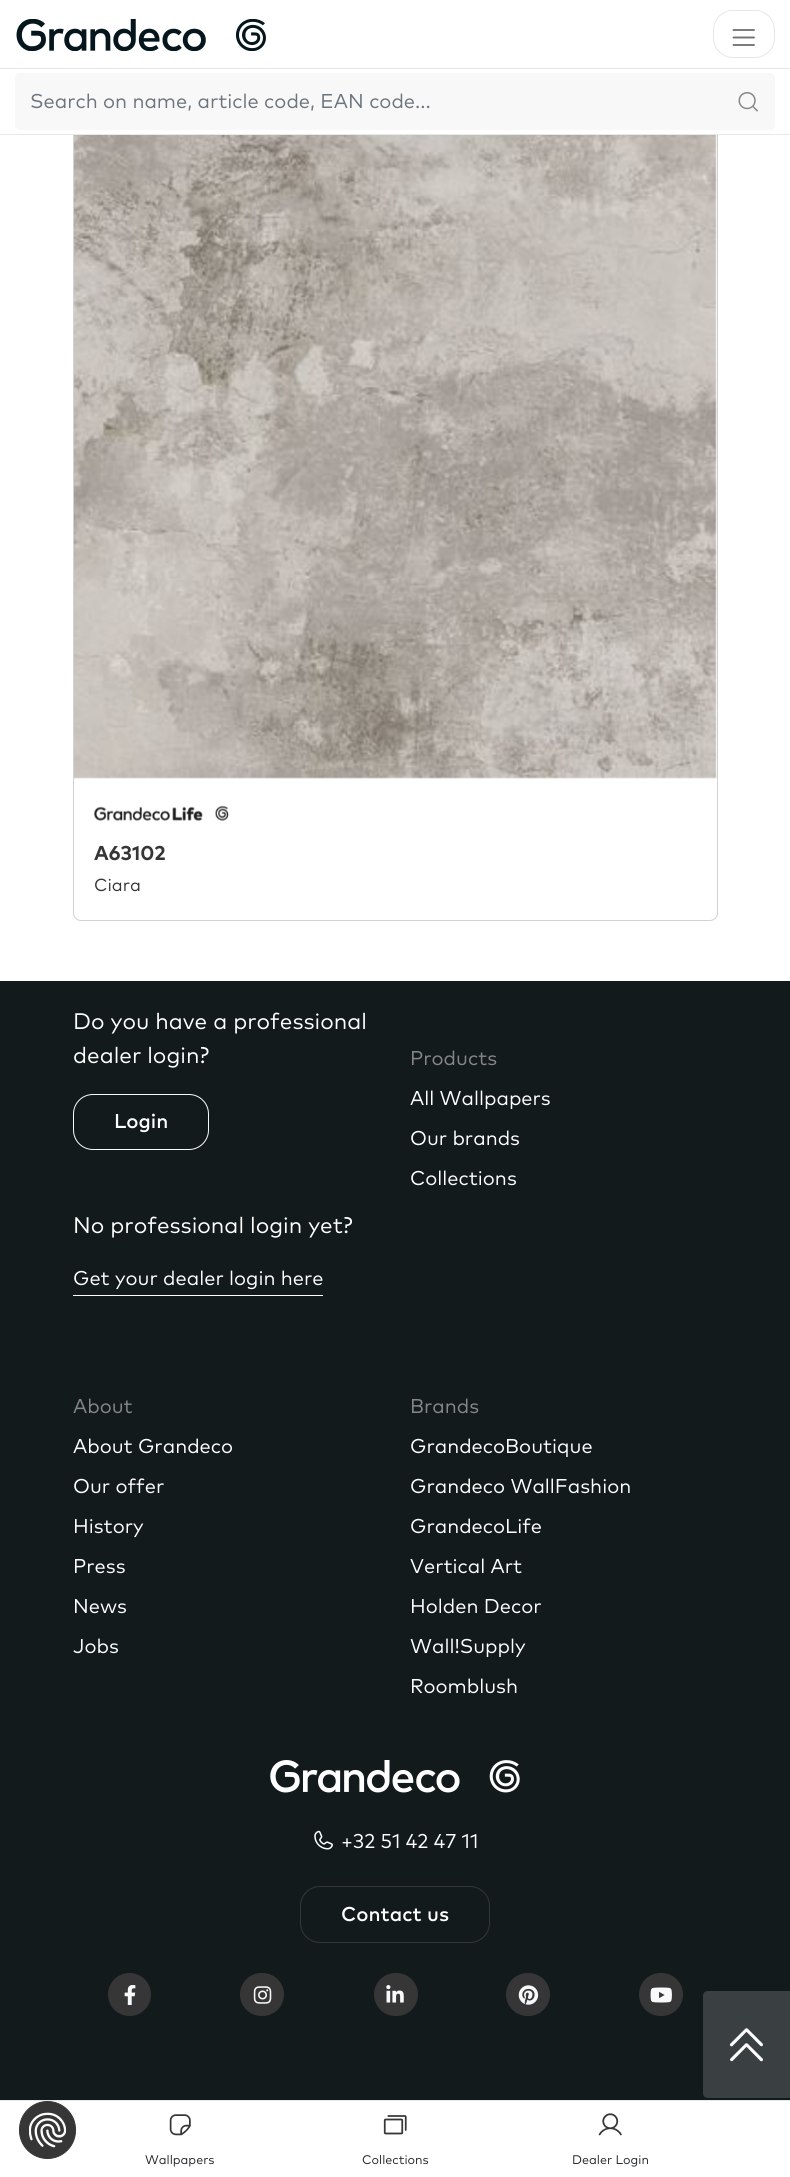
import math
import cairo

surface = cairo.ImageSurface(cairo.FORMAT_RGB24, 790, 2177)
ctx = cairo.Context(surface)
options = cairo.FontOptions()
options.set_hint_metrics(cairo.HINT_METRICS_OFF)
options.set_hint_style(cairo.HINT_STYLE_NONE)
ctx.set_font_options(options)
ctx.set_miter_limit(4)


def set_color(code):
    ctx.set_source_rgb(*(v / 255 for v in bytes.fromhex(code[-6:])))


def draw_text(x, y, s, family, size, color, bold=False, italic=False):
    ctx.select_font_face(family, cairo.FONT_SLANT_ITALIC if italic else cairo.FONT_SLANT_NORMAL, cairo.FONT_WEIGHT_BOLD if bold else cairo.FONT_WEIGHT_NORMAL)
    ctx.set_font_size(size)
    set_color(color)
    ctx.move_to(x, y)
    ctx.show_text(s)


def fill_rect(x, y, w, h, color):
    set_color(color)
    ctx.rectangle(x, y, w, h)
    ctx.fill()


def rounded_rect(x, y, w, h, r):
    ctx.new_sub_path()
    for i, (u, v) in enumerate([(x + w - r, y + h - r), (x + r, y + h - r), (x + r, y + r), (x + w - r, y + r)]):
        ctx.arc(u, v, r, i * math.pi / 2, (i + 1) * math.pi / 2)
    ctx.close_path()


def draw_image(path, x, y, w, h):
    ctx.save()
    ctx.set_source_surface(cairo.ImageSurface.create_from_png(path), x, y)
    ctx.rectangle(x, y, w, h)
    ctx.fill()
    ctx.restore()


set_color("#ffffff")
ctx.paint()
rounded_rect(73.5, -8.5, 644, 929, 7.5)
set_color("#d2d2d2")
ctx.set_line_width(1)
ctx.stroke()
fill_rect(73, 0, 645, 134, "#ffffff")
fill_rect(0, 68, 790, 1, "#e8e8e8")
draw_image("assets/img1.png", 16, 19, 250, 32)
rounded_rect(713.5, 10.5, 61, 47, 19.5)
set_color("#e6e6e6")
ctx.stroke()
draw_image("assets/img2.png", 732, 29, 23, 17)
fill_rect(0, 134, 790, 1, "#e8e8e8")
set_color("#f8f8f8")
ctx.new_path()
ctx.move_to(20, 73)
ctx.line_to(723, 73)
ctx.line_to(723, 130)
ctx.line_to(20, 130)
ctx.curve_to(17, 130, 15, 128, 15, 125)
ctx.line_to(15, 78)
ctx.curve_to(15, 75, 17, 73, 20, 73)
ctx.close_path()
ctx.fill()
draw_text(30, 108, "Search on name, article code, EAN code...", "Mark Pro", 20, "#6c757d")
set_color("#f8f8f8")
ctx.new_path()
ctx.move_to(721, 73)
ctx.line_to(770, 73)
ctx.curve_to(773, 73, 775, 75, 775, 78)
ctx.line_to(775, 125)
ctx.curve_to(775, 128, 773, 130, 770, 130)
ctx.line_to(721, 130)
ctx.close_path()
ctx.fill()
draw_image("assets/img3.png", 738, 92, 20, 20)
draw_image("assets/img4.png", 74, 135, 643, 644)
draw_image("assets/img5.png", 93, 805, 136, 16)
draw_text(94, 860, "A63102", "Mark Pro", 20, "#363636", bold=True)
draw_text(94, 891, "Ciara", "Mark Pro", 17.5, "#363636")
fill_rect(0, 981, 790, 1119, "#131a1c")
draw_text(73, 1029, "Do you have a professional", "Mark Pro", 22.5, "#ffffff")
draw_text(73, 1063, "dealer login?", "Mark Pro", 22.5, "#ffffff")
rounded_rect(73.5, 1094.5, 135, 55, 19.5)
set_color("#f8f9fa")
ctx.stroke()
draw_text(114, 1128, "Login", "Mark Pro Medium", 20, "#ffffff")
draw_text(73, 1233, "No professional login yet?", "Mark Pro", 22.5, "#ffffff")
draw_text(73, 1285, "Get your dealer login here", "Mark Pro", 20, "#ffffff")
fill_rect(73, 1295, 250, 1, "#ffffff")
draw_text(410, 1065, "Products", "Mark Pro", 20, "#878787")
draw_text(410, 1105, "All Wallpapers", "Mark Pro", 20, "#ffffff")
draw_text(410, 1145, "Our brands", "Mark Pro", 20, "#ffffff")
draw_text(410, 1185, "Collections", "Mark Pro", 20, "#ffffff")
draw_text(73, 1413, "About", "Mark Pro", 20, "#878787")
draw_text(73, 1453, "About Grandeco", "Mark Pro", 20, "#ffffff")
draw_text(73, 1493, "Our offer", "Mark Pro", 20, "#ffffff")
draw_text(73, 1533, "History", "Mark Pro", 20, "#ffffff")
draw_text(73, 1573, "Press", "Mark Pro", 20, "#ffffff")
draw_text(73, 1613, "News", "Mark Pro", 20, "#ffffff")
draw_text(73, 1653, "Jobs", "Mark Pro", 20, "#ffffff")
draw_text(410, 1413, "Brands", "Mark Pro", 20, "#878787")
draw_text(410, 1453, "GrandecoBoutique", "Mark Pro", 20, "#ffffff")
draw_text(410, 1493, "Grandeco WallFashion", "Mark Pro", 20, "#ffffff")
draw_text(410, 1533, "GrandecoLife", "Mark Pro", 20, "#ffffff")
draw_text(410, 1573, "Vertical Art", "Mark Pro", 20, "#ffffff")
draw_text(410, 1613, "Holden Decor", "Mark Pro", 20, "#ffffff")
draw_text(410, 1653, "Wall!Supply", "Mark Pro", 20, "#ffffff")
draw_text(410, 1693, "Roomblush", "Mark Pro", 20, "#ffffff")
draw_image("assets/img6.png", 270, 1760, 250, 33)
draw_image("assets/img7.png", 314, 1830, 19, 20)
draw_text(341, 1848, "+32 51 42 47 11", "Mark Pro", 20, "#ffffff")
rounded_rect(300.5, 1886.5, 189, 56, 19.5)
set_color("#363636")
ctx.stroke()
draw_text(341, 1921, "Contact us", "Mark Pro Medium", 20, "#ffffff")
set_color("#363636")
ctx.new_path()
ctx.arc(129.5, 1994.5, 21.5, 0, 2 * math.pi)
ctx.fill()
draw_image("assets/img8.png", 124, 1985, 12, 20)
rounded_rect(240, 1973, 44, 43, 21.5)
ctx.fill()
draw_image("assets/img9.png", 253, 1986, 19, 18)
rounded_rect(374, 1973, 44, 43, 21.5)
ctx.fill()
draw_image("assets/img10.png", 386, 1985, 18, 18)
rounded_rect(506, 1973, 44, 43, 21.5)
ctx.fill()
draw_image("assets/img11.png", 518, 1985, 21, 20)
rounded_rect(639, 1973, 44, 43, 21.5)
ctx.fill()
draw_image("assets/img12.png", 650, 1987, 22, 16)
set_color("#3a3f41")
ctx.new_path()
ctx.move_to(708, 1991)
ctx.line_to(790, 1991)
ctx.line_to(790, 2098)
ctx.line_to(708, 2098)
ctx.curve_to(705, 2098, 703, 2096, 703, 2093)
ctx.line_to(703, 1996)
ctx.curve_to(703, 1993, 705, 1991, 708, 1991)
ctx.close_path()
ctx.fill()
draw_image("assets/img13.png", 729, 2028, 34, 34)
set_color("#363636")
rounded_rect(19.5, 2101.5, 56, 57, 28)
ctx.fill_preserve()
ctx.stroke()
draw_image("assets/img14.png", 29, 2112, 37, 36)
fill_rect(0, 2100, 790, 1, "#e8e8e8")
draw_image("assets/img15.png", 169, 2114, 22, 22)
draw_text(145, 2164, "Wallpapers", "Mark Pro", 12.5, "#212529")
draw_image("assets/img16.png", 383, 2115, 24, 20)
draw_text(362, 2164, "Collections", "Mark Pro", 12.5, "#212529")
draw_image("assets/img17.png", 598, 2113, 24, 23)
draw_text(572, 2164, "Dealer Login", "Mark Pro", 12.5, "#212529")
surface.write_to_png("output.png")
